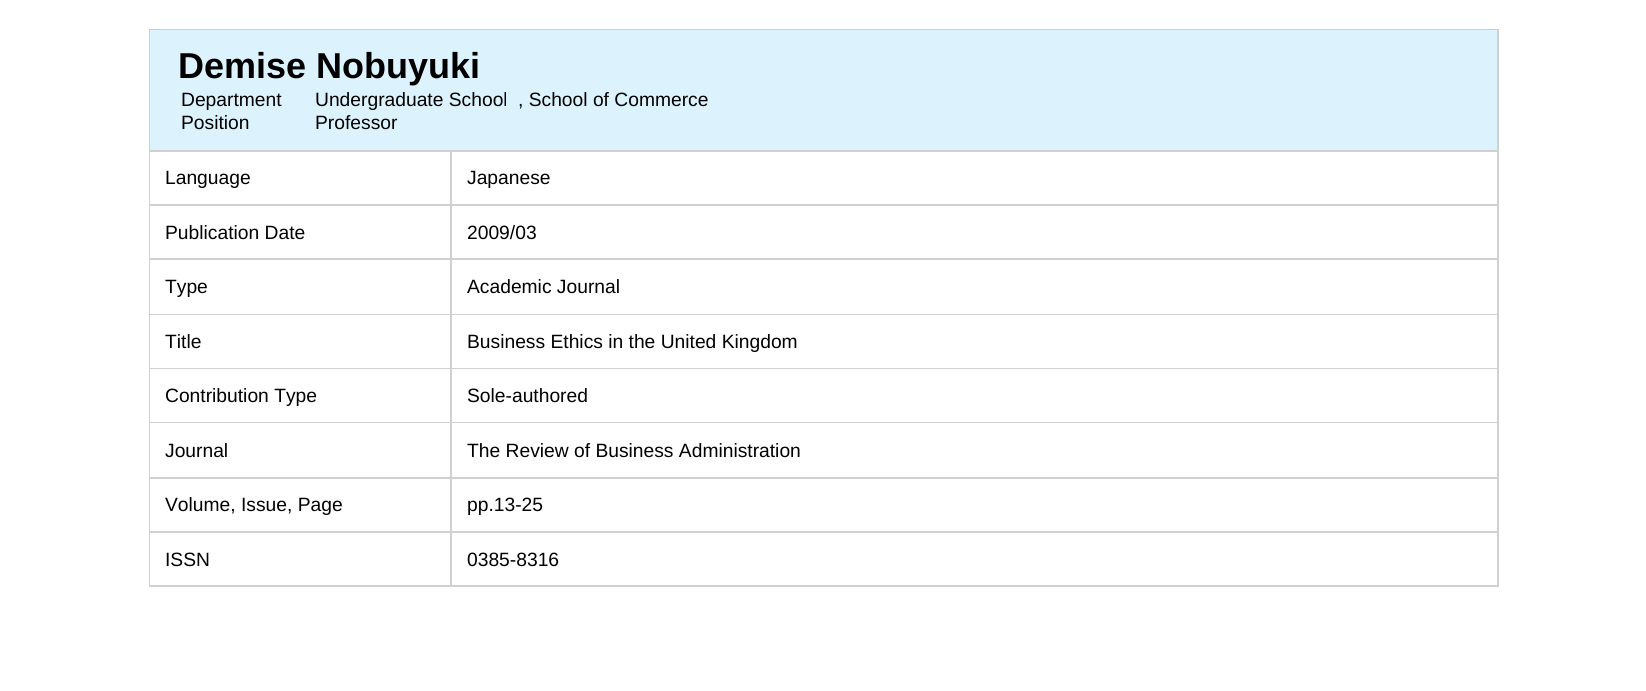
import math
import cairo

surface = cairo.ImageSurface(cairo.FORMAT_RGB24, 1646, 691)
ctx = cairo.Context(surface)
options = cairo.FontOptions()
options.set_hint_metrics(cairo.HINT_METRICS_OFF)
options.set_hint_style(cairo.HINT_STYLE_NONE)
ctx.set_font_options(options)
ctx.set_miter_limit(4)


def set_color(code):
    ctx.set_source_rgb(*(v / 255 for v in bytes.fromhex(code[-6:])))


def draw_text(x, y, s, family, size, color, bold=False, italic=False):
    ctx.select_font_face(family, cairo.FONT_SLANT_ITALIC if italic else cairo.FONT_SLANT_NORMAL, cairo.FONT_WEIGHT_BOLD if bold else cairo.FONT_WEIGHT_NORMAL)
    ctx.set_font_size(size)
    set_color(color)
    ctx.move_to(x, y)
    ctx.show_text(s)


def fill_rect(x, y, w, h, color):
    set_color(color)
    ctx.rectangle(x, y, w, h)
    ctx.fill()


set_color("#ffffff")
ctx.paint()
fill_rect(149, 29, 1350, 558, "#d0d0d0")
fill_rect(150, 30, 1347, 120, "#dcf2fc")
draw_text(178, 78, "Demise Nobuyuki", "Liberation Sans", 36, "#000000", bold=True)
draw_text(181, 106, "Department", "Liberation Sans", 19.25, "#000000")
draw_text(315, 106, "Undergraduate School", "Liberation Sans", 19.25, "#000000")
draw_text(518, 106, ", School of Commerce", "Liberation Sans", 19.25, "#000000")
draw_text(181, 129, "Position", "Liberation Sans", 19.25, "#000000")
draw_text(315, 129, "Professor", "Liberation Sans", 19.25, "#000000")
fill_rect(150, 152, 300, 52, "#ffffff")
draw_text(165, 184, "Language", "Liberation Sans", 19.25, "#000000")
fill_rect(452, 152, 1045, 52, "#ffffff")
draw_text(467, 184, "Japanese", "Liberation Sans", 19.25, "#000000")
fill_rect(150, 206, 300, 52, "#ffffff")
draw_text(165, 239, "Publication Date", "Liberation Sans", 19.25, "#000000")
fill_rect(452, 206, 1045, 52, "#ffffff")
draw_text(467, 239, "2009/03", "Liberation Sans", 19.25, "#000000")
fill_rect(150, 260, 300, 54, "#ffffff")
draw_text(165, 293, "Type", "Liberation Sans", 19.25, "#000000")
fill_rect(452, 260, 1045, 54, "#ffffff")
draw_text(467, 293, "Academic Journal", "Liberation Sans", 19.25, "#000000")
fill_rect(150, 315, 300, 53, "#ffffff")
draw_text(165, 348, "Title", "Liberation Sans", 19.25, "#000000")
fill_rect(452, 315, 1045, 53, "#ffffff")
draw_text(467, 348, "Business Ethics in the United Kingdom", "Liberation Sans", 19.25, "#000000")
fill_rect(150, 369, 300, 53, "#ffffff")
draw_text(165, 402, "Contribution Type", "Liberation Sans", 19.25, "#000000")
fill_rect(452, 369, 1045, 53, "#ffffff")
draw_text(467, 402, "Sole-authored", "Liberation Sans", 19.25, "#000000")
fill_rect(150, 423, 300, 54, "#ffffff")
draw_text(165, 457, "Journal", "Liberation Sans", 19.25, "#000000")
fill_rect(452, 423, 1045, 54, "#ffffff")
draw_text(467, 457, "The Review of Business Administration", "Liberation Sans", 19.25, "#000000")
fill_rect(150, 479, 300, 52, "#ffffff")
draw_text(165, 511, "Volume, Issue, Page", "Liberation Sans", 19.25, "#000000")
fill_rect(452, 479, 1045, 52, "#ffffff")
draw_text(467, 511, "pp.13-25", "Liberation Sans", 19.25, "#000000")
fill_rect(150, 533, 300, 52, "#ffffff")
draw_text(165, 566, "ISSN", "Liberation Sans", 19.25, "#000000")
fill_rect(452, 533, 1045, 52, "#ffffff")
draw_text(467, 566, "0385-8316", "Liberation Sans", 19.25, "#000000")
surface.write_to_png("output.png")
